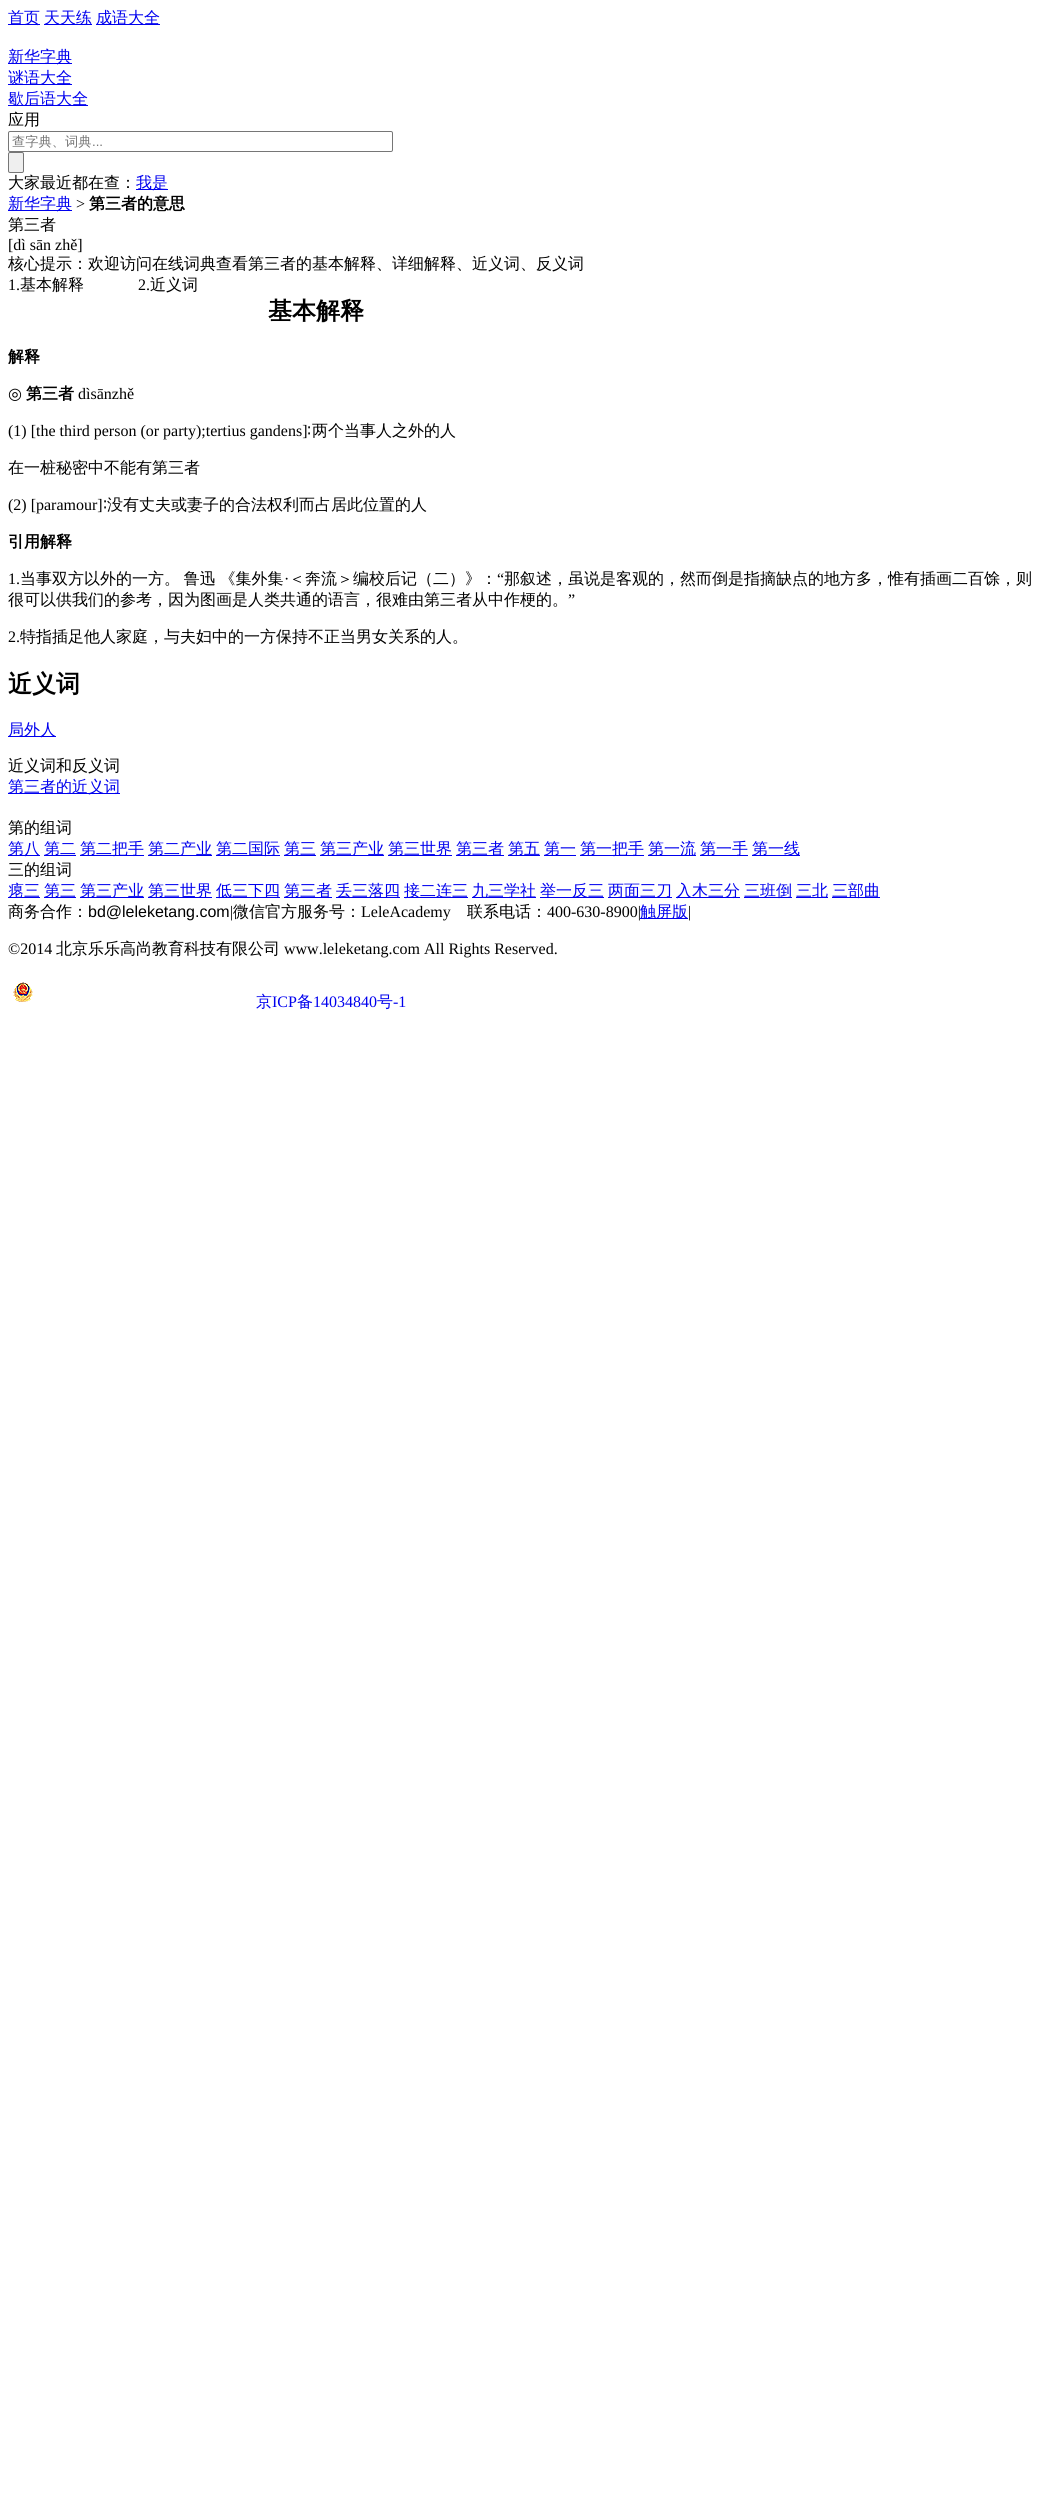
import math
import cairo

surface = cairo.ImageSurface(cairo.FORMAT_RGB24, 1055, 2512)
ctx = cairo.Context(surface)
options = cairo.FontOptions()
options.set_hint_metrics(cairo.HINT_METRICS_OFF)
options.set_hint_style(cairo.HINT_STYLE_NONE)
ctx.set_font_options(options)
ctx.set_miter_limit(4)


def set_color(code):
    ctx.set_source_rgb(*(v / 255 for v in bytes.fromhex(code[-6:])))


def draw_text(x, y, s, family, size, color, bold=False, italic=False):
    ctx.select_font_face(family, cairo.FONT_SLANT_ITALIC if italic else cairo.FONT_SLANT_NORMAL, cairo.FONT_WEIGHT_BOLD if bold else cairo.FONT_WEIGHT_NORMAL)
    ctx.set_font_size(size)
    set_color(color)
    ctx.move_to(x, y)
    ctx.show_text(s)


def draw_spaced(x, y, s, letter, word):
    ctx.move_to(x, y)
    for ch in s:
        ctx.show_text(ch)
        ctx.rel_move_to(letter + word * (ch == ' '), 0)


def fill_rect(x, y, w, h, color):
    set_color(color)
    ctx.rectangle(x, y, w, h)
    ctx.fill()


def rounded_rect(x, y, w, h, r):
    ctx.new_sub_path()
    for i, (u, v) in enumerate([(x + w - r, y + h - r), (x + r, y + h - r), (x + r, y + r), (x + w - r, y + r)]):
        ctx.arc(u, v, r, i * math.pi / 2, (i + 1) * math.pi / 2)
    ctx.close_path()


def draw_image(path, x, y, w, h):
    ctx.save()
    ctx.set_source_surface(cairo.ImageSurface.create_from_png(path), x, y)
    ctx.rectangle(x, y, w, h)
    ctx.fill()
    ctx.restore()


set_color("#ffffff")
ctx.paint()
fill_rect(8, 24, 32, 1, "#0000ee")
draw_text(8, 23, "首页", "WenQuanYi Zen Hei Medium", 16, "#0000ee")
fill_rect(44, 24, 48, 1, "#0000ee")
draw_text(44, 23, "天天练", "WenQuanYi Zen Hei Medium", 16, "#0000ee")
fill_rect(96, 24, 64, 1, "#0000ee")
draw_text(96, 23, "成语大全", "WenQuanYi Zen Hei Medium", 16, "#0000ee")
fill_rect(8, 63, 64, 1, "#0000ee")
draw_text(8, 62, "新华字典", "WenQuanYi Zen Hei Medium", 16, "#0000ee")
fill_rect(8, 84, 64, 1, "#0000ee")
draw_text(8, 83, "谜语大全", "WenQuanYi Zen Hei Medium", 16, "#0000ee")
fill_rect(8, 105, 80, 1, "#0000ee")
draw_text(8, 104, "歇后语大全", "WenQuanYi Zen Hei Medium", 16, "#0000ee")
draw_text(8, 125, "应用", "WenQuanYi Zen Hei Medium", 16, "#000000")
rounded_rect(8.5, 131.5, 384, 20, 1.5)
set_color("#767676")
ctx.set_line_width(1)
ctx.stroke()
draw_text(12, 146, "查字典、词典", "WenQuanYi Zen Hei Medium", 13.25, "#757575")
draw_text(92, 146, "...", "Liberation Sans", 13.25, "#757575")
set_color("#efefef")
rounded_rect(8.5, 152.5, 15, 20, 1.5)
ctx.fill_preserve()
set_color("#767676")
ctx.stroke()
draw_text(8, 188, "大家最近都在查：", "WenQuanYi Zen Hei Medium", 16, "#000000")
fill_rect(136, 189, 32, 1, "#0000ee")
draw_text(136, 188, "我是", "WenQuanYi Zen Hei Medium", 16, "#0000ee")
fill_rect(8, 210, 64, 1, "#0000ee")
draw_text(8, 209, "新华字典", "WenQuanYi Zen Hei Medium", 16, "#0000ee")
draw_text(76, 209, ">", "Liberation Serif", 16, "#000000")
draw_text(89, 209, "第三者的意思", "WenQuanYi Zen Hei", 16, "#000000", bold=True)
draw_text(8, 230, "第三者", "WenQuanYi Zen Hei Medium", 16, "#000000")
draw_text(8, 250, "[dì sān zhě]", "Liberation Serif", 16, "#000000")
draw_text(8, 269, "核心提示：欢迎访问在线词典查看第三者的基本解释、详细解释、近义词、反义词", "WenQuanYi Zen Hei Medium", 16, "#000000")
draw_text(8, 290, "1.", "Liberation Serif", 16, "#000000")
draw_text(20, 290, "基本解释", "WenQuanYi Zen Hei Medium", 16, "#000000")
draw_text(138, 290, "2.", "Liberation Serif", 16, "#000000")
draw_text(150, 290, "近义词", "WenQuanYi Zen Hei Medium", 16, "#000000")
draw_text(268, 319, "基本解释", "WenQuanYi Zen Hei", 24, "#000000", bold=True)
draw_text(8, 362, "解释", "WenQuanYi Zen Hei", 16, "#000000", bold=True)
draw_text(8, 399, "◎", "DejaVu Sans", 16, "#000000")
draw_text(26, 399, "第三者", "WenQuanYi Zen Hei", 16, "#000000", bold=True)
draw_text(78, 399, "dìsānzhě", "Liberation Serif", 16, "#000000")
draw_text(8, 436, "(1) [the third person (or party);tertius gandens]", "Liberation Serif", 16, "#000000")
draw_text(307, 436, "∶", "DejaVu Sans", 16, "#000000")
draw_text(312, 436, "两个当事人之外的人", "WenQuanYi Zen Hei Medium", 16, "#000000")
draw_text(8, 473, "在一桩秘密中不能有第三者", "WenQuanYi Zen Hei Medium", 16, "#000000")
draw_text(8, 510, "(2) [paramour]", "Liberation Serif", 16, "#000000")
draw_text(103, 510, "∶", "DejaVu Sans", 16, "#000000")
draw_text(107, 510, "没有丈夫或妻子的合法权利而占居此位置的人", "WenQuanYi Zen Hei Medium", 16, "#000000")
draw_text(8, 547, "引用解释", "WenQuanYi Zen Hei", 16, "#000000", bold=True)
draw_text(8, 584, "1.", "Liberation Serif", 16, "#000000")
ctx.select_font_face("WenQuanYi Zen Hei Medium")
draw_spaced(20, 584, "当事双方以外的一方。 鲁迅 《集外集", 0, -1)
draw_text(289, 584, "＜奔流＞编校后记（二）》：", "WenQuanYi Zen Hei Medium", 16, "#000000")
draw_text(497, 584, "“", "Liberation Serif", 16, "#000000")
draw_text(504, 584, "那叙述，虽说是客观的，然而倒是指摘缺点的地方多，惟有插画二百馀，则", "WenQuanYi Zen Hei Medium", 16, "#000000")
draw_text(284, 584, "·", "Liberation Serif", 16, "#000000")
draw_text(8, 605, "很可以供我们的参考，因为图画是人类共通的语言，很难由第三者从中作梗的。", "WenQuanYi Zen Hei Medium", 16, "#000000")
draw_text(568, 605, "”", "Liberation Serif", 16, "#000000")
draw_text(8, 642, "2.", "Liberation Serif", 16, "#000000")
draw_text(20, 642, "特指插足他人家庭，与夫妇中的一方保持不正当男女关系的人。", "WenQuanYi Zen Hei Medium", 16, "#000000")
draw_text(8, 692, "近义词", "WenQuanYi Zen Hei", 24, "#000000", bold=True)
fill_rect(8, 736, 48, 1, "#0000ee")
draw_text(8, 735, "局外人", "WenQuanYi Zen Hei Medium", 16, "#0000ee")
draw_text(8, 771, "近义词和反义词", "WenQuanYi Zen Hei Medium", 16, "#000000")
fill_rect(8, 793, 112, 1, "#0000ee")
draw_text(8, 792, "第三者的近义词", "WenQuanYi Zen Hei Medium", 16, "#0000ee")
draw_text(8, 833, "第的组词", "WenQuanYi Zen Hei Medium", 16, "#000000")
fill_rect(8, 855, 32, 1, "#0000ee")
draw_text(8, 854, "第八", "WenQuanYi Zen Hei Medium", 16, "#0000ee")
fill_rect(44, 855, 32, 1, "#0000ee")
draw_text(44, 854, "第二", "WenQuanYi Zen Hei Medium", 16, "#0000ee")
fill_rect(80, 855, 64, 1, "#0000ee")
draw_text(80, 854, "第二把手", "WenQuanYi Zen Hei Medium", 16, "#0000ee")
fill_rect(148, 855, 64, 1, "#0000ee")
draw_text(148, 854, "第二产业", "WenQuanYi Zen Hei Medium", 16, "#0000ee")
fill_rect(216, 855, 64, 1, "#0000ee")
draw_text(216, 854, "第二国际", "WenQuanYi Zen Hei Medium", 16, "#0000ee")
fill_rect(284, 855, 32, 1, "#0000ee")
draw_text(284, 854, "第三", "WenQuanYi Zen Hei Medium", 16, "#0000ee")
fill_rect(320, 855, 64, 1, "#0000ee")
draw_text(320, 854, "第三产业", "WenQuanYi Zen Hei Medium", 16, "#0000ee")
fill_rect(388, 855, 64, 1, "#0000ee")
draw_text(388, 854, "第三世界", "WenQuanYi Zen Hei Medium", 16, "#0000ee")
fill_rect(456, 855, 48, 1, "#0000ee")
draw_text(456, 854, "第三者", "WenQuanYi Zen Hei Medium", 16, "#0000ee")
fill_rect(508, 855, 32, 1, "#0000ee")
draw_text(508, 854, "第五", "WenQuanYi Zen Hei Medium", 16, "#0000ee")
fill_rect(544, 855, 32, 1, "#0000ee")
draw_text(544, 854, "第一", "WenQuanYi Zen Hei Medium", 16, "#0000ee")
fill_rect(580, 855, 64, 1, "#0000ee")
draw_text(580, 854, "第一把手", "WenQuanYi Zen Hei Medium", 16, "#0000ee")
fill_rect(648, 855, 48, 1, "#0000ee")
draw_text(648, 854, "第一流", "WenQuanYi Zen Hei Medium", 16, "#0000ee")
fill_rect(700, 855, 48, 1, "#0000ee")
draw_text(700, 854, "第一手", "WenQuanYi Zen Hei Medium", 16, "#0000ee")
fill_rect(752, 855, 48, 1, "#0000ee")
draw_text(752, 854, "第一线", "WenQuanYi Zen Hei Medium", 16, "#0000ee")
draw_text(8, 875, "三的组词", "WenQuanYi Zen Hei Medium", 16, "#000000")
fill_rect(8, 897, 32, 1, "#0000ee")
draw_text(8, 896, "瘪三", "WenQuanYi Zen Hei Medium", 16, "#0000ee")
fill_rect(44, 897, 32, 1, "#0000ee")
draw_text(44, 896, "第三", "WenQuanYi Zen Hei Medium", 16, "#0000ee")
fill_rect(80, 897, 64, 1, "#0000ee")
draw_text(80, 896, "第三产业", "WenQuanYi Zen Hei Medium", 16, "#0000ee")
fill_rect(148, 897, 64, 1, "#0000ee")
draw_text(148, 896, "第三世界", "WenQuanYi Zen Hei Medium", 16, "#0000ee")
fill_rect(216, 897, 64, 1, "#0000ee")
draw_text(216, 896, "低三下四", "WenQuanYi Zen Hei Medium", 16, "#0000ee")
fill_rect(284, 897, 48, 1, "#0000ee")
draw_text(284, 896, "第三者", "WenQuanYi Zen Hei Medium", 16, "#0000ee")
fill_rect(336, 897, 64, 1, "#0000ee")
draw_text(336, 896, "丢三落四", "WenQuanYi Zen Hei Medium", 16, "#0000ee")
fill_rect(404, 897, 64, 1, "#0000ee")
draw_text(404, 896, "接二连三", "WenQuanYi Zen Hei Medium", 16, "#0000ee")
fill_rect(472, 897, 64, 1, "#0000ee")
draw_text(472, 896, "九三学社", "WenQuanYi Zen Hei Medium", 16, "#0000ee")
fill_rect(540, 897, 64, 1, "#0000ee")
draw_text(540, 896, "举一反三", "WenQuanYi Zen Hei Medium", 16, "#0000ee")
fill_rect(608, 897, 64, 1, "#0000ee")
draw_text(608, 896, "两面三刀", "WenQuanYi Zen Hei Medium", 16, "#0000ee")
fill_rect(676, 897, 64, 1, "#0000ee")
draw_text(676, 896, "入木三分", "WenQuanYi Zen Hei Medium", 16, "#0000ee")
fill_rect(744, 897, 48, 1, "#0000ee")
draw_text(744, 896, "三班倒", "WenQuanYi Zen Hei Medium", 16, "#0000ee")
fill_rect(796, 897, 32, 1, "#0000ee")
draw_text(796, 896, "三北", "WenQuanYi Zen Hei Medium", 16, "#0000ee")
fill_rect(832, 897, 48, 1, "#0000ee")
draw_text(832, 896, "三部曲", "WenQuanYi Zen Hei Medium", 16, "#0000ee")
draw_text(8, 917, "商务合作：", "WenQuanYi Zen Hei Medium", 16, "#000000")
draw_text(88, 917, "bd@leleketang.com", "Liberation Sans", 16, "#000000")
draw_text(230, 917, "|", "Liberation Serif", 16, "#000000")
draw_text(233, 917, "微信官方服务号：", "WenQuanYi Zen Hei Medium", 16, "#000000")
draw_text(361, 917, "LeleAcademy", "Liberation Serif", 16, "#000000")
draw_text(467, 917, "联系电话：", "WenQuanYi Zen Hei Medium", 16, "#000000")
draw_text(547, 917, "400-630-8900|", "Liberation Serif", 16, "#000000")
fill_rect(640, 918, 48, 1, "#0000ee")
draw_text(640, 917, "触屏版", "WenQuanYi Zen Hei Medium", 16, "#0000ee")
draw_text(688, 917, "|", "Liberation Serif", 16, "#000000")
draw_text(8, 954, "©2014", "Liberation Serif", 16, "#000000")
draw_text(56, 954, "北京乐乐高尚教育科技有限公司", "WenQuanYi Zen Hei Medium", 16, "#000000")
draw_text(284, 954, "www.leleketang.com All Rights Reserved.", "Liberation Serif", 16, "#000000")
draw_image("assets/img1.png", 13, 982, 20, 20)
draw_text(256, 1007, "京", "WenQuanYi Zen Hei Medium", 16, "#0000ee")
draw_text(272, 1007, "ICP", "Liberation Serif", 16, "#0000ee")
draw_text(297, 1007, "备", "WenQuanYi Zen Hei Medium", 16, "#0000ee")
draw_text(313, 1007, "14034840", "Liberation Serif", 16, "#0000ee")
draw_text(377, 1007, "号", "WenQuanYi Zen Hei Medium", 16, "#0000ee")
draw_text(393, 1007, "-1", "Liberation Serif", 16, "#0000ee")
surface.write_to_png("output.png")
